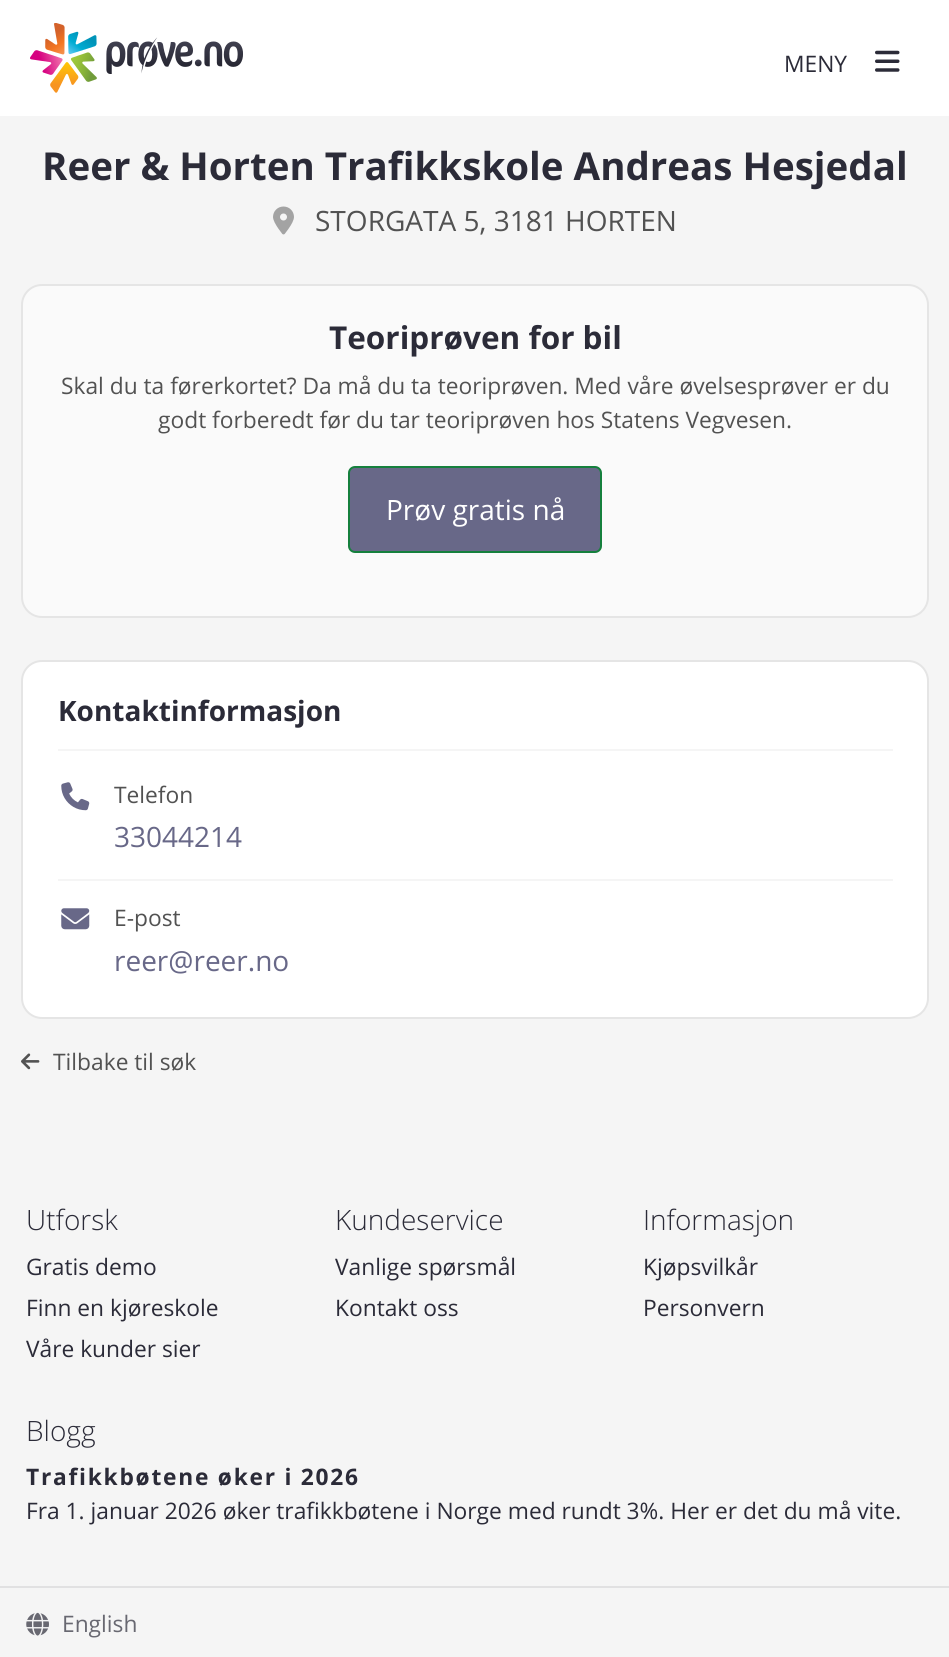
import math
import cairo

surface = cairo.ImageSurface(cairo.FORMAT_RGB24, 949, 1657)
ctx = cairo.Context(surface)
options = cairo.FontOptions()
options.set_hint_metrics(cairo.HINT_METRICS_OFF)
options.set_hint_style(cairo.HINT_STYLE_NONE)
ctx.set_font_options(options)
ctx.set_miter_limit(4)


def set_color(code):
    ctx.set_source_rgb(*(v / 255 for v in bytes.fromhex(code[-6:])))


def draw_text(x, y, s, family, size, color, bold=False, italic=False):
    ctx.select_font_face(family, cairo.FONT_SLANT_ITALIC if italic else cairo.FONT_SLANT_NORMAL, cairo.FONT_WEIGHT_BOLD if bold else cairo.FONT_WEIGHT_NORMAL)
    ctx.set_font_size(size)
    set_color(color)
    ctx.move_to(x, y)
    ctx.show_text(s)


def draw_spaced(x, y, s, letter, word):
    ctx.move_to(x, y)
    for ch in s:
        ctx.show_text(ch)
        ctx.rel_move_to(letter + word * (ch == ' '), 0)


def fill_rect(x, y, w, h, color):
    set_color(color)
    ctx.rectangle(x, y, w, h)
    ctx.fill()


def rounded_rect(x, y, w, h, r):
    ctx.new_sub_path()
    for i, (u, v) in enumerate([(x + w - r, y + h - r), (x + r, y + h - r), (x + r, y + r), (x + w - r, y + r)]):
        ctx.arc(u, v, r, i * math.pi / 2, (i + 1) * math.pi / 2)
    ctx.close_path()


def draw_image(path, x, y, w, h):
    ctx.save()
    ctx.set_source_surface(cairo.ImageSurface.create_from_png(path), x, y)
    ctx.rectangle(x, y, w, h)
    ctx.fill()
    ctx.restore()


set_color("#f5f5f5")
ctx.paint()
fill_rect(0, 0, 949, 116, "#ffffff")
draw_image("assets/img1.png", 30, 23, 213, 70)
draw_text(784, 72, "MENY", "Open Sans", 22.75, "#2b2b38")
draw_image("assets/img2.png", 875, 50, 25, 22)
draw_text(42, 180, "Reer & Horten Trafikkskole Andreas Hesjedal", "Open Sans", 38.5, "#2b2b38", bold=True)
draw_image("assets/img3.png", 273, 206, 21, 29)
draw_text(315, 231, "STORGATA 5, 3181 HORTEN", "Open Sans", 28, "#525252")
set_color("#fafafa")
rounded_rect(22, 285, 906, 332, 20)
ctx.fill_preserve()
set_color("#e5e5e5")
ctx.stroke()
draw_text(329, 349, "Teoriprøven for bil", "Open Sans", 31.5, "#2b2b38", bold=True)
draw_text(61, 394, "Skal du ta førerkortet? Da må du ta teoriprøven. Med våre øvelsesprøver er du", "Open Sans", 22.75, "#525252")
draw_text(158, 428, "godt forberedt før du tar teoriprøven hos Statens Vegvesen.", "Open Sans", 22.75, "#525252")
set_color("#686888")
rounded_rect(349, 467, 252, 85, 6)
ctx.fill_preserve()
set_color("#15803d")
ctx.stroke()
draw_text(386, 520, "Prøv gratis nå", "Open Sans", 28, "#ffffff")
rounded_rect(22, 661, 906, 357, 20)
ctx.fill_preserve()
set_color("#e5e5e5")
ctx.stroke()
fill_rect(58, 749, 835, 2, "#f5f5f5")
draw_text(58, 721, "Kontaktinformasjon", "Open Sans", 28, "#2b2b38", bold=True)
fill_rect(58, 879, 835, 2, "#f5f5f5")
draw_image("assets/img4.png", 61, 782, 29, 29)
draw_text(114, 803, "Telefon", "Open Sans", 22.75, "#525252")
draw_text(114, 847, "33044214", "Open Sans", 28, "#686888")
draw_image("assets/img5.png", 61, 908, 29, 22)
draw_text(114, 926, "E-post", "Open Sans", 22.75, "#525252")
draw_text(114, 971, "reer@reer.no", "Open Sans", 28, "#686888")
draw_image("assets/img6.png", 21, 1053, 19, 17)
draw_text(53, 1070, "Tilbake til søk", "Open Sans", 22.75, "#525252")
draw_text(26, 1230, "Utforsk", "Open Sans Light", 28, "#2b2b38")
draw_text(26, 1275, "Gratis demo", "Open Sans", 22.75, "#2b2b38")
draw_text(26, 1316, "Finn en kjøreskole", "Open Sans", 22.75, "#2b2b38")
draw_text(26, 1357, "Våre kunder sier", "Open Sans", 22.75, "#2b2b38")
draw_text(335, 1230, "Kundeservice", "Open Sans Light", 28, "#2b2b38")
draw_text(335, 1275, "Vanlige spørsmål", "Open Sans", 22.75, "#2b2b38")
draw_text(335, 1316, "Kontakt oss", "Open Sans", 22.75, "#2b2b38")
draw_text(643, 1230, "Informasjon", "Open Sans Light", 28, "#2b2b38")
draw_text(643, 1275, "Kjøpsvilkår", "Open Sans", 22.75, "#2b2b38")
draw_text(643, 1316, "Personvern", "Open Sans", 22.75, "#2b2b38")
draw_text(26, 1441, "Blogg", "Open Sans Light", 28, "#2b2b38")
ctx.select_font_face("Open Sans", cairo.FONT_SLANT_NORMAL, cairo.FONT_WEIGHT_BOLD)
ctx.set_font_size(22.75)
draw_spaced(26, 1485, "Trafikkbøtene øker i 2026", 1.75, 0)
draw_text(26, 1519, "Fra 1. januar 2026 øker trafikkbøtene i Norge med rundt 3%. Her er det du må vite.", "Open Sans", 22.75, "#2b2b38")
fill_rect(0, 1586, 949, 2, "#e1e1e2")
draw_image("assets/img7.png", 26, 1612, 23, 24)
draw_text(62, 1632, "English", "Open Sans", 22.75, "#686871")
surface.write_to_png("output.png")
